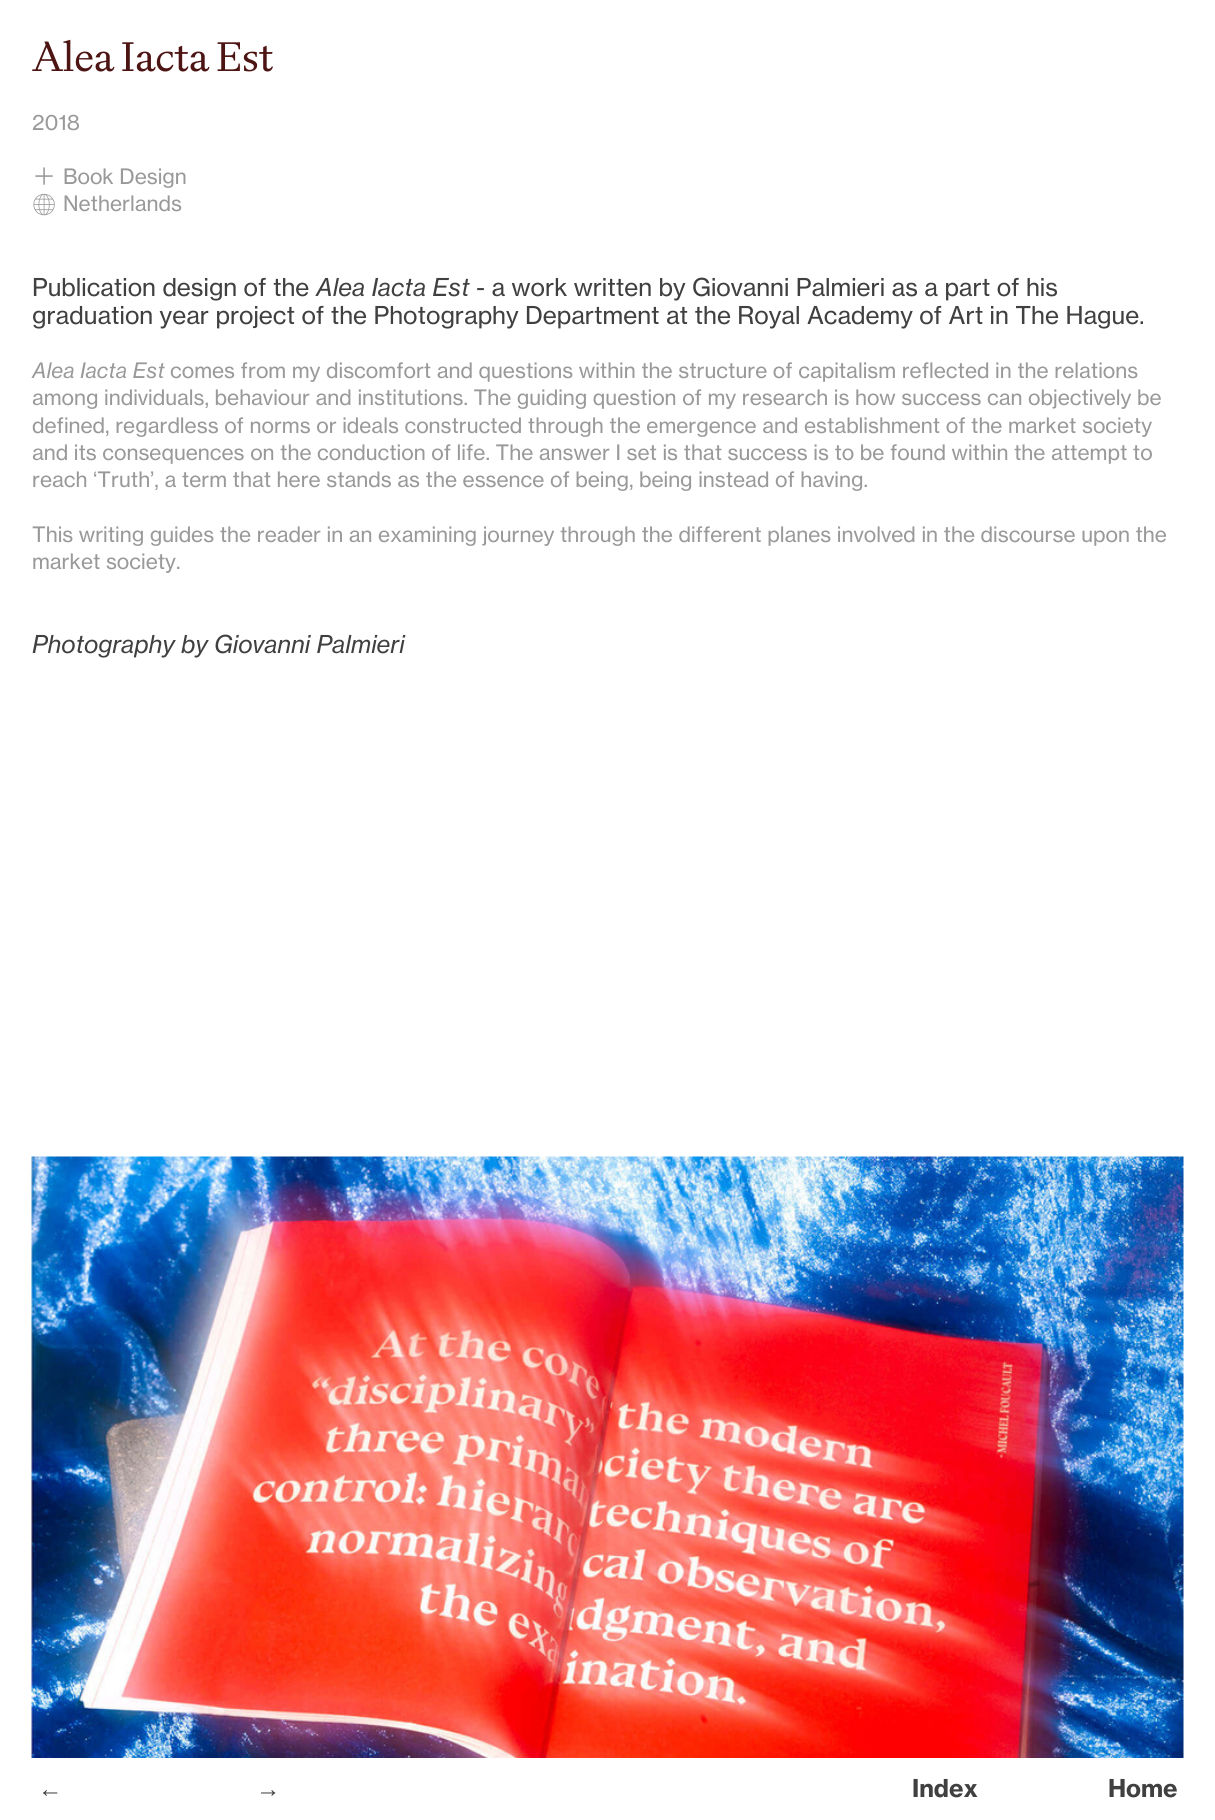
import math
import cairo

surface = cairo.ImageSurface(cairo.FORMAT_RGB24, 1215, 1820)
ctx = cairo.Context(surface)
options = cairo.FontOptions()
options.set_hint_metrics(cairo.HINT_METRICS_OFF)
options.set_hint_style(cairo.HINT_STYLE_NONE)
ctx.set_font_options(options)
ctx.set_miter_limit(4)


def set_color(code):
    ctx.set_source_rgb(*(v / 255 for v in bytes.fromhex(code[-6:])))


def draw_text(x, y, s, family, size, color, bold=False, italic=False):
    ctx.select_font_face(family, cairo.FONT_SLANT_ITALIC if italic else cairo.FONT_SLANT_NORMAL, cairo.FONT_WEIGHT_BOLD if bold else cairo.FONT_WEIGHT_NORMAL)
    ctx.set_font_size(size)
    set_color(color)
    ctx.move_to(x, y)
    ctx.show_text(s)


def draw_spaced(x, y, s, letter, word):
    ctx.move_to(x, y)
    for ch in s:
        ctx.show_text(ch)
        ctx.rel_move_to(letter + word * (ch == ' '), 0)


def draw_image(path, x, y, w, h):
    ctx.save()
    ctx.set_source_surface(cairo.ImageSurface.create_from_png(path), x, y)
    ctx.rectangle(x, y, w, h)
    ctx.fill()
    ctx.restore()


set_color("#ffffff")
ctx.paint()
ctx.select_font_face("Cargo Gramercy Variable")
ctx.set_font_size(41)
set_color("#4c1412")
draw_spaced(32, 71, "Alea Iacta Est", 0, -2)
draw_text(32, 130, "2018", "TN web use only", 20.95, "#999999")
draw_image("assets/img1.png", 35, 167, 18, 18)
draw_text(63, 184, "Book Design", "TN web use only", 20.95, "#999999")
draw_image("assets/img2.png", 33, 193, 22, 23)
draw_text(63, 211, "Netherlands", "TN web use only", 20.95, "#999999")
draw_text(32, 296, "Publication design of the", "TN web use only", 24.25, "#404040")
draw_text(316, 296, "Alea Iacta Est", "TN web use only", 24.25, "#404040", italic=True)
draw_text(476, 296, "- a work written by Giovanni Palmieri as a part of his", "TN web use only", 24.25, "#404040")
draw_text(32, 324, "graduation year project of the Photography Department at the Royal Academy of Art in The Hague.", "TN web use only", 24.25, "#404040")
draw_text(32, 378, "Alea Iacta Est", "TN web use only", 20.95, "#999999", italic=True)
draw_text(170, 378, "comes from my discomfort and questions within the structure of capitalism reflected in the relations", "TN web use only", 20.95, "#999999")
draw_text(32, 405, "among individuals, behaviour and institutions. The guiding question of my research is how success can objectively be", "TN web use only", 20.95, "#999999")
draw_text(32, 433, "defined, regardless of norms or ideals constructed through the emergence and establishment of the market society", "TN web use only", 20.95, "#999999")
draw_text(32, 460, "and its consequences on the conduction of life. The answer I set is that success is to be found within the attempt to", "TN web use only", 20.95, "#999999")
draw_text(32, 487, "reach ‘Truth’, a term that here stands as the essence of being, being instead of having.", "TN web use only", 20.95, "#999999")
draw_text(32, 542, "This writing guides the reader in an examining journey through the different planes involved in the discourse upon the", "TN web use only", 20.95, "#999999")
draw_text(32, 569, "market society.", "TN web use only", 20.95, "#999999")
draw_text(32, 653, "Photography by Giovanni Palmieri", "TN web use only", 24.25, "#404040", italic=True)
draw_image("assets/img3.png", 31, 1156, 1153, 602)
draw_text(38, 1797, "←", "Liberation Serif", 24.25, "#404040")
draw_text(256, 1797, "→", "Liberation Serif", 24.25, "#404040")
draw_text(912, 1797, "Index", "TN web use only", 24.25, "#404040", bold=True)
draw_text(1108, 1797, "Home", "TN web use only", 24.25, "#404040", bold=True)
surface.write_to_png("output.png")
